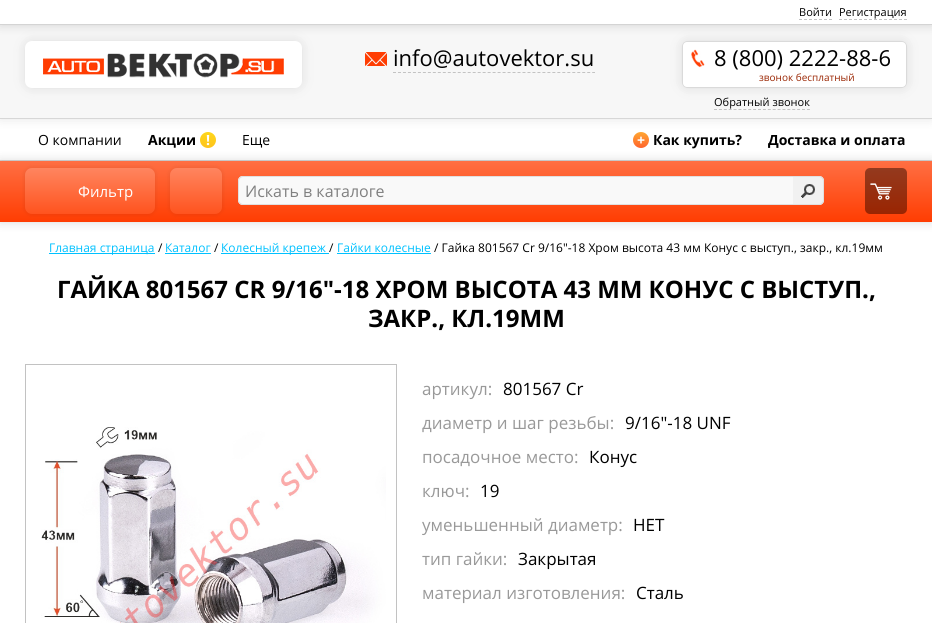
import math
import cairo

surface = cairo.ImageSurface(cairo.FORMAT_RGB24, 932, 623)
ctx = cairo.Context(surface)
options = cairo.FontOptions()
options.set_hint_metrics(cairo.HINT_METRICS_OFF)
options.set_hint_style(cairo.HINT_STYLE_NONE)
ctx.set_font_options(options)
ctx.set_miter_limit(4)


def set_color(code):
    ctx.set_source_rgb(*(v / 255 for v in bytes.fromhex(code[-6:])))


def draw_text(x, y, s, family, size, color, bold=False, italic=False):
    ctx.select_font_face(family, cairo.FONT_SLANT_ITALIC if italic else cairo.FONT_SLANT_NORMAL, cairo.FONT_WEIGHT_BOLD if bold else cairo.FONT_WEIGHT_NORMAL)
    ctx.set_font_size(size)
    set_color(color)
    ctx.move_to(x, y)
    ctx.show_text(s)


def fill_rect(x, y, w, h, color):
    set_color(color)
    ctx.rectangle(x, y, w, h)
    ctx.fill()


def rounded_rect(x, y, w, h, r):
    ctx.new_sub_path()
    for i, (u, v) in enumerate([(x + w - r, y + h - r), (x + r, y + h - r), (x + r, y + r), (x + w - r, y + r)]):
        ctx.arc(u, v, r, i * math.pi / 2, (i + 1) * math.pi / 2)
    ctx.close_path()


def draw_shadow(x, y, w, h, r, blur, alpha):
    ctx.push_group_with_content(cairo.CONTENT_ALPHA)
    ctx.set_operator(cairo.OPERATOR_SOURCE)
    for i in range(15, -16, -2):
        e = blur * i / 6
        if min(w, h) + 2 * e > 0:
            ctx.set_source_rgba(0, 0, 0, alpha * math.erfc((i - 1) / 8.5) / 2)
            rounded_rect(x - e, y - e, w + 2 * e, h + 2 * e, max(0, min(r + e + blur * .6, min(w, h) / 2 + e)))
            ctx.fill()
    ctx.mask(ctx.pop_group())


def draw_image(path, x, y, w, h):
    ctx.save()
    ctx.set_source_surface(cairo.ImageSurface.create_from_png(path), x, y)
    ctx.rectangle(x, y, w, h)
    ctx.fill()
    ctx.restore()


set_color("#ffffff")
ctx.paint()
gradient = cairo.LinearGradient(208, 132, 208, 148)
gradient.add_color_stop_rgba(0, 0.996, 0.843, 0.11, 1)
gradient.add_color_stop_rgba(1, 0.996, 0.765, 0.11, 1)
ctx.set_source(gradient)
ctx.arc(208, 140, 8, 0, 2 * math.pi)
ctx.fill()
gradient = cairo.LinearGradient(641, 132, 641, 148)
gradient.add_color_stop_rgba(0, 1, 0.655, 0.196, 1)
gradient.add_color_stop_rgba(1, 1, 0.388, 0.173, 1)
ctx.set_source(gradient)
ctx.arc(641, 140, 8, 0, 2 * math.pi)
ctx.fill()
set_color("#000000")
draw_shadow(0, 25, 932, 94, 0, 5.5, 0.1)
fill_rect(0, 25, 932, 93, "#f7f7f7")
set_color("#6f6f6f")
draw_shadow(25, 41, 277, 47, 7, 5.5, 0.2)
set_color("#ffffff")
rounded_rect(25, 41, 277, 47, 7)
ctx.fill()
set_color("#6f6f6f")
draw_shadow(682, 41, 225, 47, 5, 5.5, 0.2)
set_color("#ffffff")
rounded_rect(682, 41, 225, 47, 5)
ctx.fill()
draw_image("assets/img3.png", 691, 49, 14, 19)
rounded_rect(682.5, 41.5, 224, 46, 4.5)
set_color("#dadada")
ctx.set_line_width(1)
ctx.stroke()
set_color("#000000")
draw_shadow(0, 0, 932, 25, 0, 5.5, 0.15)
fill_rect(0, 0, 932, 24, "#ffffff")
fill_rect(0, 24, 932, 1, "#d4d4d4")
draw_text(799, 16, "Войти", "Open Sans", 11, "#000000")
ctx.new_path()
ctx.move_to(799, 19.5)
ctx.line_to(832, 19.5)
set_color("#c3c3c3")
ctx.set_dash([3, 2])
ctx.stroke()
draw_text(839, 16, "Регистрация", "Open Sans", 11, "#000000")
ctx.new_path()
ctx.move_to(839, 19.5)
ctx.line_to(907, 19.5)
set_color("#c3c3c3")
ctx.stroke()
fill_rect(0, 118, 932, 1, "#d7d7d7")
draw_image("assets/img1.png", 43, 53, 241, 25)
draw_image("assets/img2.png", 365, 52, 22, 14)
draw_text(393, 66, "info@autovektor.su", "Open Sans", 22, "#000000")
ctx.new_path()
ctx.move_to(393, 72.5)
ctx.line_to(595, 72.5)
set_color("#c3c3c3")
ctx.set_dash([3, 1.98])
ctx.stroke()
draw_text(714, 66, "8 (800) 2222-88-6", "Open Sans", 22, "#000000")
draw_text(759, 81, "звонок бесплатный", "Open Sans", 10, "#9a2502")
draw_text(714, 106, "Обратный звонок", "Open Sans", 11, "#000000")
ctx.new_path()
ctx.move_to(714, 109.5)
ctx.line_to(810, 109.5)
set_color("#c3c3c3")
ctx.set_dash([3, 1.89])
ctx.stroke()
fill_rect(0, 160, 932, 1, "#d7d7d7")
draw_text(38, 145, "О компании", "Open Sans", 14, "#000000")
draw_text(148, 145, "Акции", "Open Sans", 14, "#000000", bold=True)
draw_text(206, 145, "!", "Open Sans", 14, "#ffffff", bold=True)
draw_text(242, 145, "Еще", "Open Sans", 14, "#000000")
draw_text(637, 145, "+", "Open Sans", 14, "#ffffff", bold=True)
draw_text(653, 145, "Как купить?", "Open Sans", 14, "#000000", bold=True)
draw_text(768, 145, "Доставка и оплата", "Open Sans", 14, "#000000", bold=True)
fill_rect(49, 253, 106, 1, "#00c1ff")
draw_text(49, 252, "Главная страница", "Open Sans", 12, "#00c1ff")
draw_text(158, 252, "/", "Open Sans", 12, "#000000")
draw_text(165, 252, "Каталог", "Open Sans", 12, "#00c1ff")
fill_rect(165, 253, 46, 1, "#00c1ff")
draw_text(214, 252, "/", "Open Sans", 12, "#000000")
fill_rect(221, 253, 108, 1, "#00c1ff")
draw_text(221, 252, "Колесный крепеж", "Open Sans", 12, "#00c1ff")
draw_text(329, 252, "/", "Open Sans", 12, "#000000")
draw_text(337, 252, "Гайки колесные", "Open Sans", 12, "#00c1ff")
fill_rect(337, 253, 94, 1, "#00c1ff")
draw_text(434, 252, "/ Гайка 801567 Cr 9/16\"-18 Хром высота 43 мм Конус с выступ., закр., кл.19мм", "Open Sans", 12, "#000000")
draw_text(57, 298, "ГАЙКА 801567 CR 9/16\"-18 ХРОМ ВЫСОТА 43 ММ КОНУС С ВЫСТУП.,", "Open Sans", 24, "#000000", bold=True)
draw_text(368, 327, "ЗАКР., КЛ.19ММ", "Open Sans", 24, "#000000", bold=True)
ctx.rectangle(25.5, 364.5, 371, 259)
set_color("#c2c2c2")
ctx.set_dash([])
ctx.stroke()
draw_image("assets/img4.png", 41, 427, 345, 196)
draw_text(422, 395, "артикул:", "Open Sans", 17, "#999999")
draw_text(503, 395, "801567 Cr", "Open Sans", 17, "#000000")
draw_text(422, 429, "диаметр и шаг резьбы:", "Open Sans", 17, "#999999")
draw_text(625, 429, "9/16\"-18 UNF", "Open Sans", 17, "#000000")
draw_text(422, 463, "посадочное место:", "Open Sans", 17, "#999999")
draw_text(589, 463, "Конус", "Open Sans", 17, "#000000")
draw_text(422, 497, "ключ:", "Open Sans", 17, "#999999")
draw_text(480, 497, "19", "Open Sans", 17, "#000000")
draw_text(422, 531, "уменьшенный диаметр:", "Open Sans", 17, "#999999")
draw_text(633, 531, "НЕТ", "Open Sans", 17, "#000000")
draw_text(422, 565, "тип гайки:", "Open Sans", 17, "#999999")
draw_text(518, 565, "Закрытая", "Open Sans", 17, "#000000")
draw_text(422, 599, "материал изготовления:", "Open Sans", 17, "#999999")
draw_text(636, 599, "Сталь", "Open Sans", 17, "#000000")
set_color("#000000")
draw_shadow(0, 161, 932, 61, 0, 5.5, 0.15)
gradient = cairo.LinearGradient(466, 161, 466, 222)
gradient.add_color_stop_rgba(0, 1, 0.435, 0.263, 1)
gradient.add_color_stop_rgba(1, 1, 0.239, 0.008, 1)
ctx.set_source(gradient)
ctx.rectangle(0, 161, 932, 61)
ctx.fill()
set_color("#000000")
draw_shadow(25, 168, 130, 46, 7, 2.5, 0.1)
gradient = cairo.LinearGradient(90, 168, 90, 214)
gradient.add_color_stop_rgba(0, 1, 0.522, 0.373, 1)
gradient.add_color_stop_rgba(1, 1, 0.325, 0.118, 1)
ctx.set_source(gradient)
rounded_rect(25, 168, 130, 46, 7)
ctx.fill()
draw_text(78, 197, "Фильтр", "Open Sans", 15, "#ffffff")
set_color("#000000")
draw_shadow(170, 168, 52, 46, 7, 2.5, 0.1)
gradient = cairo.LinearGradient(196, 168, 196, 214)
gradient.add_color_stop_rgba(0, 1, 0.522, 0.373, 1)
gradient.add_color_stop_rgba(1, 1, 0.325, 0.118, 1)
ctx.set_source(gradient)
rounded_rect(170, 168, 52, 46, 7)
ctx.fill()
set_color("#f9f9f9")
ctx.new_path()
ctx.move_to(243, 176)
ctx.line_to(793, 176)
ctx.line_to(793, 205)
ctx.line_to(243, 205)
ctx.curve_to(240, 205, 238, 203, 238, 200)
ctx.line_to(238, 181)
ctx.curve_to(238, 178, 240, 176, 243, 176)
ctx.close_path()
ctx.fill()
ctx.save()
ctx.rectangle(238, 176, 555, 29)
ctx.clip()
set_color("#e0e0e0")
ctx.set_fill_rule(cairo.FILL_RULE_EVEN_ODD)
ctx.new_path()
ctx.move_to(243, 176)
ctx.line_to(793, 176)
ctx.line_to(793, 205)
ctx.line_to(243, 205)
ctx.curve_to(236, 205, 238, 195, 238, 190)
ctx.curve_to(238, 186, 236, 176, 243, 176)
ctx.close_path()
ctx.move_to(243, 177)
ctx.line_to(793, 177)
ctx.line_to(793, 204)
ctx.line_to(243, 204)
ctx.curve_to(241, 204, 239, 202, 239, 200)
ctx.line_to(239, 181)
ctx.curve_to(239, 179, 241, 177, 243, 177)
ctx.close_path()
ctx.fill()
ctx.restore()
draw_text(245, 197, "Искать в каталоге", "Open Sans", 16, "#808080")
set_color("#f1f1f1")
ctx.new_path()
ctx.move_to(793, 176)
ctx.line_to(819, 176)
ctx.curve_to(822, 176, 824, 178, 824, 181)
ctx.line_to(824, 200)
ctx.curve_to(824, 203, 822, 205, 819, 205)
ctx.line_to(793, 205)
ctx.close_path()
ctx.fill()
draw_image("assets/img5.png", 801, 184, 14, 14)
set_color("#e0e0e0")
ctx.set_fill_rule(cairo.FILL_RULE_EVEN_ODD)
ctx.new_path()
ctx.move_to(793, 176)
ctx.line_to(819, 176)
ctx.curve_to(822, 176, 824, 178, 824, 181)
ctx.line_to(824, 200)
ctx.curve_to(824, 203, 822, 205, 819, 205)
ctx.line_to(793, 205)
ctx.close_path()
ctx.move_to(793, 177)
ctx.line_to(819, 177)
ctx.curve_to(821, 177, 823, 179, 823, 181)
ctx.line_to(823, 200)
ctx.curve_to(823, 202, 821, 204, 819, 204)
ctx.line_to(793, 204)
ctx.close_path()
ctx.fill()
gradient = cairo.LinearGradient(886, 168, 886, 214)
gradient.add_color_stop_rgba(0, 0.58, 0.227, 0.118, 1)
gradient.add_color_stop_rgba(1, 0.604, 0.145, 0.008, 1)
ctx.set_source(gradient)
rounded_rect(865, 168, 42, 46, 5)
ctx.fill()
draw_image("assets/img6.png", 870, 183, 22, 17)
surface.write_to_png("output.png")
